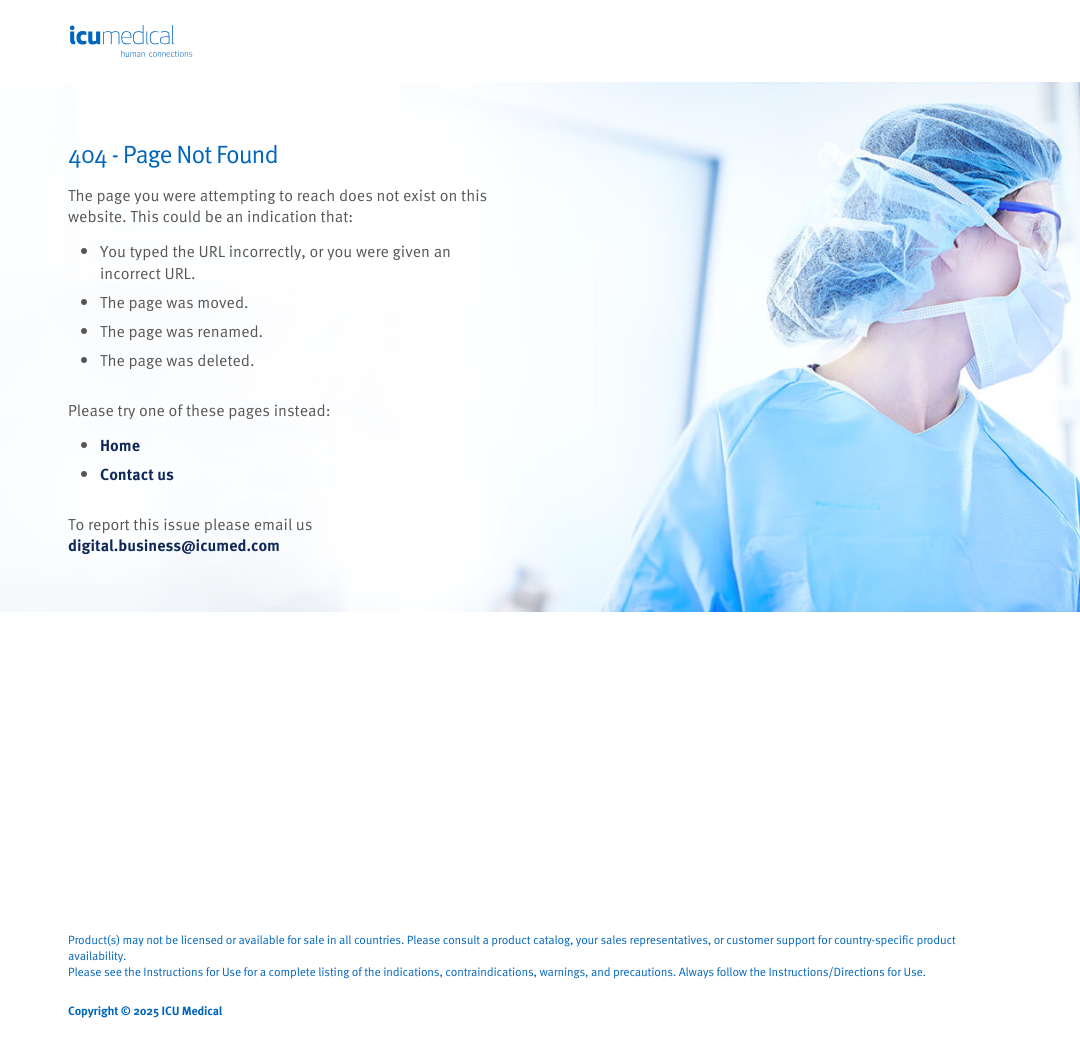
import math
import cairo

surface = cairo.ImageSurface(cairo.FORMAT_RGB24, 1080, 1041)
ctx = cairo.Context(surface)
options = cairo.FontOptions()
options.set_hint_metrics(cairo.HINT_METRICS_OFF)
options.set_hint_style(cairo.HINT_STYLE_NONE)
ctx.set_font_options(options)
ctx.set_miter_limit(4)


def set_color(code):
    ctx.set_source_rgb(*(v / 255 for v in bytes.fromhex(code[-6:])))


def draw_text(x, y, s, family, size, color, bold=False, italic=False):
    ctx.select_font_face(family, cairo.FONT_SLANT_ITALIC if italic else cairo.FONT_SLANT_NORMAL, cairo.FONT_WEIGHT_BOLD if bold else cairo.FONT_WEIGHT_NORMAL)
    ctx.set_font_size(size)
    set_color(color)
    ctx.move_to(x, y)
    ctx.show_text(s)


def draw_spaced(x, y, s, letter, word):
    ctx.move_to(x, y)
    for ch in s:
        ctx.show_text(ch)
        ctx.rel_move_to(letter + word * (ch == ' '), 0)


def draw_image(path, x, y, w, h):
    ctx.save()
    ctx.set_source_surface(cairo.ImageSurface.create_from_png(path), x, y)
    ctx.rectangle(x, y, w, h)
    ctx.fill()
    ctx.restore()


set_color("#ffffff")
ctx.paint()
draw_image("assets/img1.png", 69, 25, 124, 32)
draw_image("assets/img2.png", 0, 82, 1080, 530)
ctx.select_font_face("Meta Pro")
ctx.set_font_size(25)
set_color("#0065bd")
draw_spaced(68, 163, "404 - Page Not Found", -1, 0)
draw_text(68, 201, "The page you were attempting to reach does not exist on this", "Meta Pro", 16, "#565656")
draw_text(68, 222, "website. This could be an indication that:", "Meta Pro", 16, "#565656")
ctx.new_path()
ctx.arc(84, 251, 3, 0, 2 * math.pi)
ctx.fill()
draw_text(100, 257, "You typed the URL incorrectly, or you were given an", "Meta Pro", 16, "#565656")
draw_text(100, 279, "incorrect URL.", "Meta Pro", 16, "#565656")
ctx.new_path()
ctx.arc(84, 302, 3, 0, 2 * math.pi)
ctx.fill()
draw_text(100, 308, "The page was moved.", "Meta Pro", 16, "#565656")
ctx.new_path()
ctx.arc(84, 331, 3, 0, 2 * math.pi)
ctx.fill()
draw_text(100, 337, "The page was renamed.", "Meta Pro", 16, "#565656")
ctx.new_path()
ctx.arc(84, 360, 3, 0, 2 * math.pi)
ctx.fill()
draw_text(100, 366, "The page was deleted.", "Meta Pro", 16, "#565656")
draw_text(68, 416, "Please try one of these pages instead:", "Meta Pro", 16, "#565656")
ctx.new_path()
ctx.arc(84, 445, 3, 0, 2 * math.pi)
ctx.fill()
draw_text(100, 451, "Home", "Meta Pro", 16, "#102857", bold=True)
set_color("#565656")
ctx.new_path()
ctx.arc(84, 474, 3, 0, 2 * math.pi)
ctx.fill()
draw_text(100, 480, "Contact us", "Meta Pro", 16, "#102857", bold=True)
draw_text(68, 530, "To report this issue please email us", "Meta Pro", 16, "#565656")
draw_text(68, 551, "digital.business@icumed.com", "Meta Pro", 16, "#102857", bold=True)
ctx.select_font_face("Meta Pro")
ctx.set_font_size(12)
set_color("#0065bd")
draw_spaced(68, 944, "Product(s) may not be licensed or available for sale in all countries. Please consult a product catalog, your sales representatives, or customer support for country-specific product", -0.17, 0)
draw_spaced(68, 960, "availability.", -0.17, 0)
draw_spaced(68, 976, "Please see the Instructions for Use for a complete listing of the indications, contraindications, warnings, and precautions. Always follow the Instructions/Directions for Use.", -0.17, 0)
ctx.select_font_face("Meta Pro", cairo.FONT_SLANT_NORMAL, cairo.FONT_WEIGHT_BOLD)
draw_spaced(68, 1015, "Copyright © 2025 ICU Medical", -0.17, 0)
surface.write_to_png("output.png")
